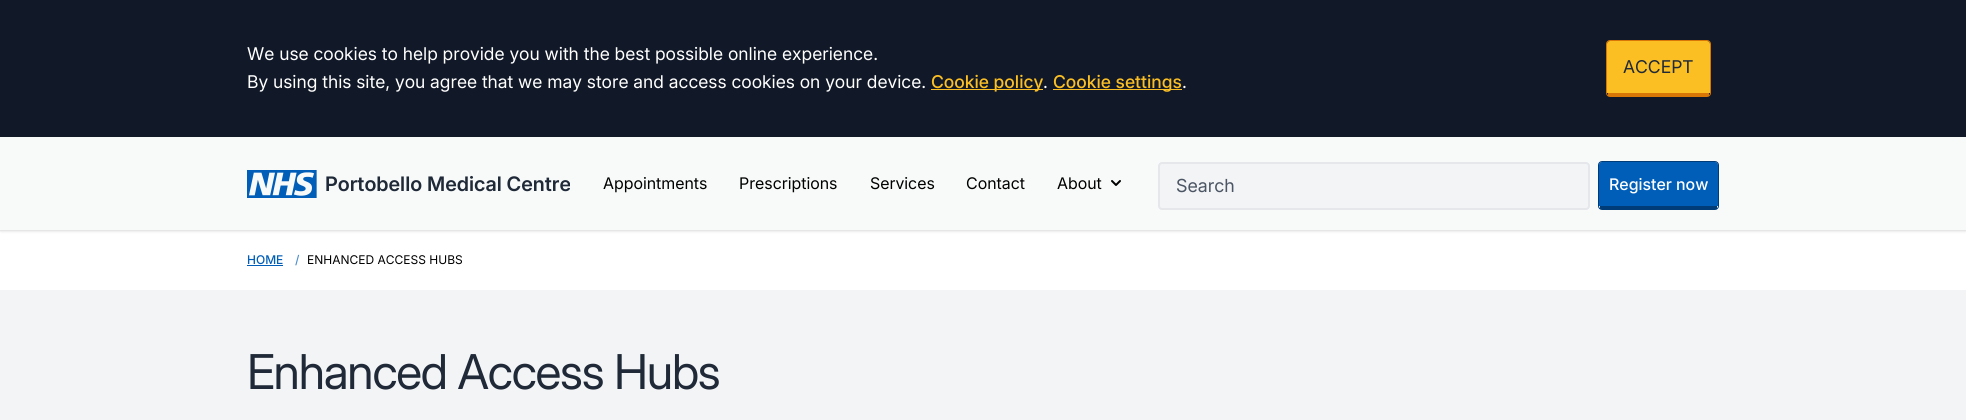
import math
import cairo

surface = cairo.ImageSurface(cairo.FORMAT_RGB24, 1966, 420)
ctx = cairo.Context(surface)
options = cairo.FontOptions()
options.set_hint_metrics(cairo.HINT_METRICS_OFF)
options.set_hint_style(cairo.HINT_STYLE_NONE)
ctx.set_font_options(options)
ctx.set_miter_limit(4)


def set_color(code):
    ctx.set_source_rgb(*(v / 255 for v in bytes.fromhex(code[-6:])))


def draw_text(x, y, s, family, size, color, bold=False, italic=False):
    ctx.select_font_face(family, cairo.FONT_SLANT_ITALIC if italic else cairo.FONT_SLANT_NORMAL, cairo.FONT_WEIGHT_BOLD if bold else cairo.FONT_WEIGHT_NORMAL)
    ctx.set_font_size(size)
    set_color(color)
    ctx.move_to(x, y)
    ctx.show_text(s)


def draw_spaced(x, y, s, letter, word):
    ctx.move_to(x, y)
    for ch in s:
        ctx.show_text(ch)
        ctx.rel_move_to(letter + word * (ch == ' '), 0)


def fill_rect(x, y, w, h, color):
    set_color(color)
    ctx.rectangle(x, y, w, h)
    ctx.fill()


def rounded_rect(x, y, w, h, r):
    ctx.new_sub_path()
    for i, (u, v) in enumerate([(x + w - r, y + h - r), (x + r, y + h - r), (x + r, y + r), (x + w - r, y + r)]):
        ctx.arc(u, v, r, i * math.pi / 2, (i + 1) * math.pi / 2)
    ctx.close_path()


def draw_shadow(x, y, w, h, r, blur, alpha):
    ctx.push_group_with_content(cairo.CONTENT_ALPHA)
    ctx.set_operator(cairo.OPERATOR_SOURCE)
    for i in range(15, -16, -2):
        e = blur * i / 6
        if min(w, h) + 2 * e > 0:
            ctx.set_source_rgba(0, 0, 0, alpha * math.erfc((i - 1) / 8.5) / 2)
            rounded_rect(x - e, y - e, w + 2 * e, h + 2 * e, max(0, min(r + e + blur * .6, min(w, h) / 2 + e)))
            ctx.fill()
    ctx.mask(ctx.pop_group())


def draw_image(path, x, y, w, h):
    ctx.save()
    ctx.set_source_surface(cairo.ImageSurface.create_from_png(path), x, y)
    ctx.rectangle(x, y, w, h)
    ctx.fill()
    ctx.restore()


set_color("#111827")
ctx.paint()
draw_text(247, 60, "We use cookies to help provide you with the best possible online experience.", "Inter", 17.6, "#ffffff")
draw_text(247, 88, "By using this site, you agree that we may store and access cookies on your device.", "Inter", 17.6, "#ffffff")
fill_rect(931, 89, 112, 1, "#fbbf24")
draw_text(931, 88, "Cookie policy", "Inter Medium", 17.6, "#fbbf24")
draw_text(1043, 88, ".", "Inter", 17.6, "#ffffff")
fill_rect(1053, 89, 129, 1, "#fbbf24")
draw_text(1053, 88, "Cookie settings", "Inter Medium", 17.6, "#fbbf24")
draw_text(1182, 88, ".", "Inter", 17.6, "#ffffff")
set_color("#fbbf24")
ctx.new_path()
ctx.move_to(1610, 41)
ctx.line_to(1707, 41)
ctx.curve_to(1709, 41, 1710, 42, 1710, 44)
ctx.line_to(1710, 93)
ctx.line_to(1607, 93)
ctx.line_to(1607, 44)
ctx.curve_to(1607, 42, 1608, 41, 1610, 41)
ctx.close_path()
ctx.fill()
rounded_rect(1606.5, 40.5, 104, 56, 3.5)
set_color("#d97706")
ctx.set_line_width(1)
ctx.stroke()
fill_rect(1608, 93, 101, 3, "#d97706")
draw_text(1623, 73, "ACCEPT", "Inter", 17.6, "#1f2937")
fill_rect(0, 230, 1966, 60, "#ffffff")
set_color("#000000")
draw_shadow(0, 138, 1966, 93, 0, 1, 0.06)
draw_shadow(0, 138, 1966, 93, 0, 1.5, 0.1)
fill_rect(0, 137, 1966, 93, "#f8fafa")
draw_image("assets/img1.png", 247, 170, 70, 28)
draw_text(325, 191, "Portobello Medical Centre", "Inter SemiBold", 20, "#1f2937")
draw_text(603, 189, "Appointments", "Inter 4", 16, "#000000")
draw_text(739, 189, "Prescriptions", "Inter 4", 16, "#000000")
draw_text(870, 189, "Services", "Inter 4", 16, "#000000")
draw_text(966, 189, "Contact", "Inter 4", 16, "#000000")
draw_text(1057, 189, "About", "Inter 4", 16, "#000000")
draw_image("assets/img2.png", 1111, 180, 10, 6)
set_color("#f3f4f6")
rounded_rect(1159, 163, 430, 46, 3)
ctx.fill_preserve()
set_color("#e5e7eb")
ctx.set_line_width(2)
ctx.stroke()
draw_text(1176, 192, "Search", "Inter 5", 18, "#4b5563")
set_color("#005eb8")
ctx.new_path()
ctx.move_to(1602, 162)
ctx.line_to(1715, 162)
ctx.curve_to(1717, 162, 1718, 163, 1718, 165)
ctx.line_to(1718, 206)
ctx.line_to(1599, 206)
ctx.line_to(1599, 165)
ctx.curve_to(1599, 163, 1600, 162, 1602, 162)
ctx.close_path()
ctx.fill()
rounded_rect(1598.5, 161.5, 120, 48, 3.5)
set_color("#003d78")
ctx.set_line_width(1)
ctx.stroke()
fill_rect(1600, 206, 117, 3, "#003d78")
draw_text(1609, 190, "Register now", "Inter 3 Medium", 16, "#ffffff")
draw_text(247, 264, "HOME", "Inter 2 Medium", 12, "#005eb8")
fill_rect(247, 265, 36, 1, "#005eb8")
draw_text(295, 264, "/", "Inter 2 Medium", 12, "#4d8ecd")
draw_text(307, 264, "ENHANCED ACCESS HUBS", "Inter 3", 12, "#000000")
fill_rect(0, 290, 1966, 130, "#f3f4f6")
ctx.select_font_face("Inter 2")
ctx.set_font_size(48)
set_color("#1f2937")
draw_spaced(247, 389, "Enhanced Access Hubs", -1.2, 0)
surface.write_to_png("output.png")
